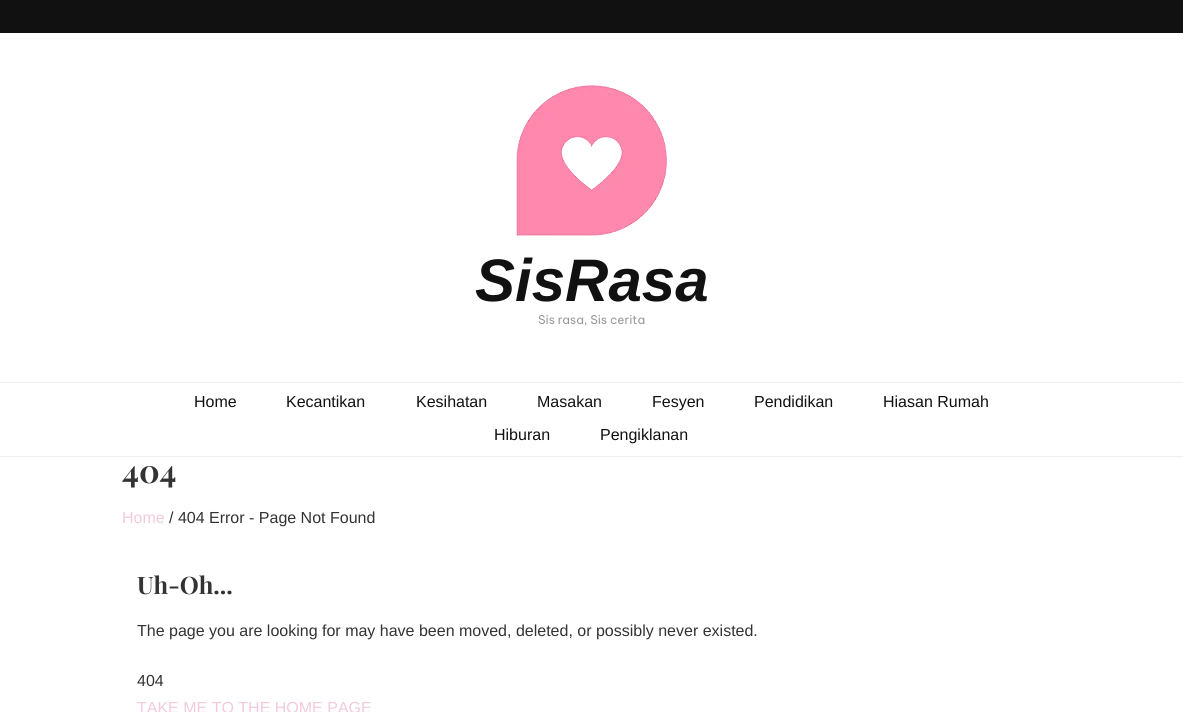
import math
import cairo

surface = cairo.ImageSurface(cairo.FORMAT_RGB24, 1183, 712)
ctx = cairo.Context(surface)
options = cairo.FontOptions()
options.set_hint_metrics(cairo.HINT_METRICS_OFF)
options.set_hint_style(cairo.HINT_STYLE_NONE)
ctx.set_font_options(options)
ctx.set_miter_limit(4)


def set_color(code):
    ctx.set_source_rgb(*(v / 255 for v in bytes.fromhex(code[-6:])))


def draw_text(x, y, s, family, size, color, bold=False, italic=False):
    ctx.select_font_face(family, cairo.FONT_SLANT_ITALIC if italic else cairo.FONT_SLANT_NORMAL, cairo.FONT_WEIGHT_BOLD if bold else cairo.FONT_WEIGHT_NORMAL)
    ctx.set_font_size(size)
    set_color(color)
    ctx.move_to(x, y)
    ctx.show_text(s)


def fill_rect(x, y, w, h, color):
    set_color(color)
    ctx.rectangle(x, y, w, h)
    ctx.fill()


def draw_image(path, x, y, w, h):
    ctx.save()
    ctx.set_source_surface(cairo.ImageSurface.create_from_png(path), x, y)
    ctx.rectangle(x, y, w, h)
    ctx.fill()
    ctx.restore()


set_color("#ffffff")
ctx.paint()
fill_rect(0, 0, 1183, 33, "#111111")
draw_image("assets/img1.png", 516, 85, 151, 151)
draw_text(475, 301, "SisRasa", "Liberation Sans", 60, "#111111", bold=True, italic=True)
draw_text(538, 324, "Sis rasa, Sis cerita", "Be Vietnam Pro", 12, "#999999")
fill_rect(0, 382, 1183, 1, "#eeeeee")
fill_rect(0, 456, 1183, 1, "#eeeeee")
draw_text(194, 407, "Home", "Liberation Sans", 16, "#111111")
draw_text(286, 407, "Kecantikan", "Liberation Sans", 16, "#111111")
draw_text(416, 407, "Kesihatan", "Liberation Sans", 16, "#111111")
draw_text(537, 407, "Masakan", "Liberation Sans", 16, "#111111")
draw_text(652, 407, "Fesyen", "Liberation Sans", 16, "#111111")
draw_text(754, 407, "Pendidikan", "Liberation Sans", 16, "#111111")
draw_text(883, 407, "Hiasan Rumah", "Liberation Sans", 16, "#111111")
draw_text(494, 440, "Hiburan", "Liberation Sans", 16, "#111111")
draw_text(600, 440, "Pengiklanan", "Liberation Sans", 16, "#111111")
draw_text(122, 483, "404", "Playfair Display", 32, "#333333", bold=True)
draw_text(122, 523, "Home", "Liberation Sans", 16, "#f3c9dd")
draw_text(169, 523, "/ 404 Error - Page Not Found", "Liberation Sans", 16, "#333333")
draw_text(137, 594, "Uh-Oh...", "Playfair Display", 24, "#333333", bold=True)
draw_text(137, 636, "The page you are looking for may have been moved, deleted, or possibly never existed.", "Liberation Sans", 16, "#333333")
draw_text(137, 686, "404", "Liberation Sans", 16, "#333333")
draw_text(137, 713, "TAKE ME TO THE HOME PAGE", "Liberation Sans", 16, "#f3c9dd")
surface.write_to_png("output.png")
